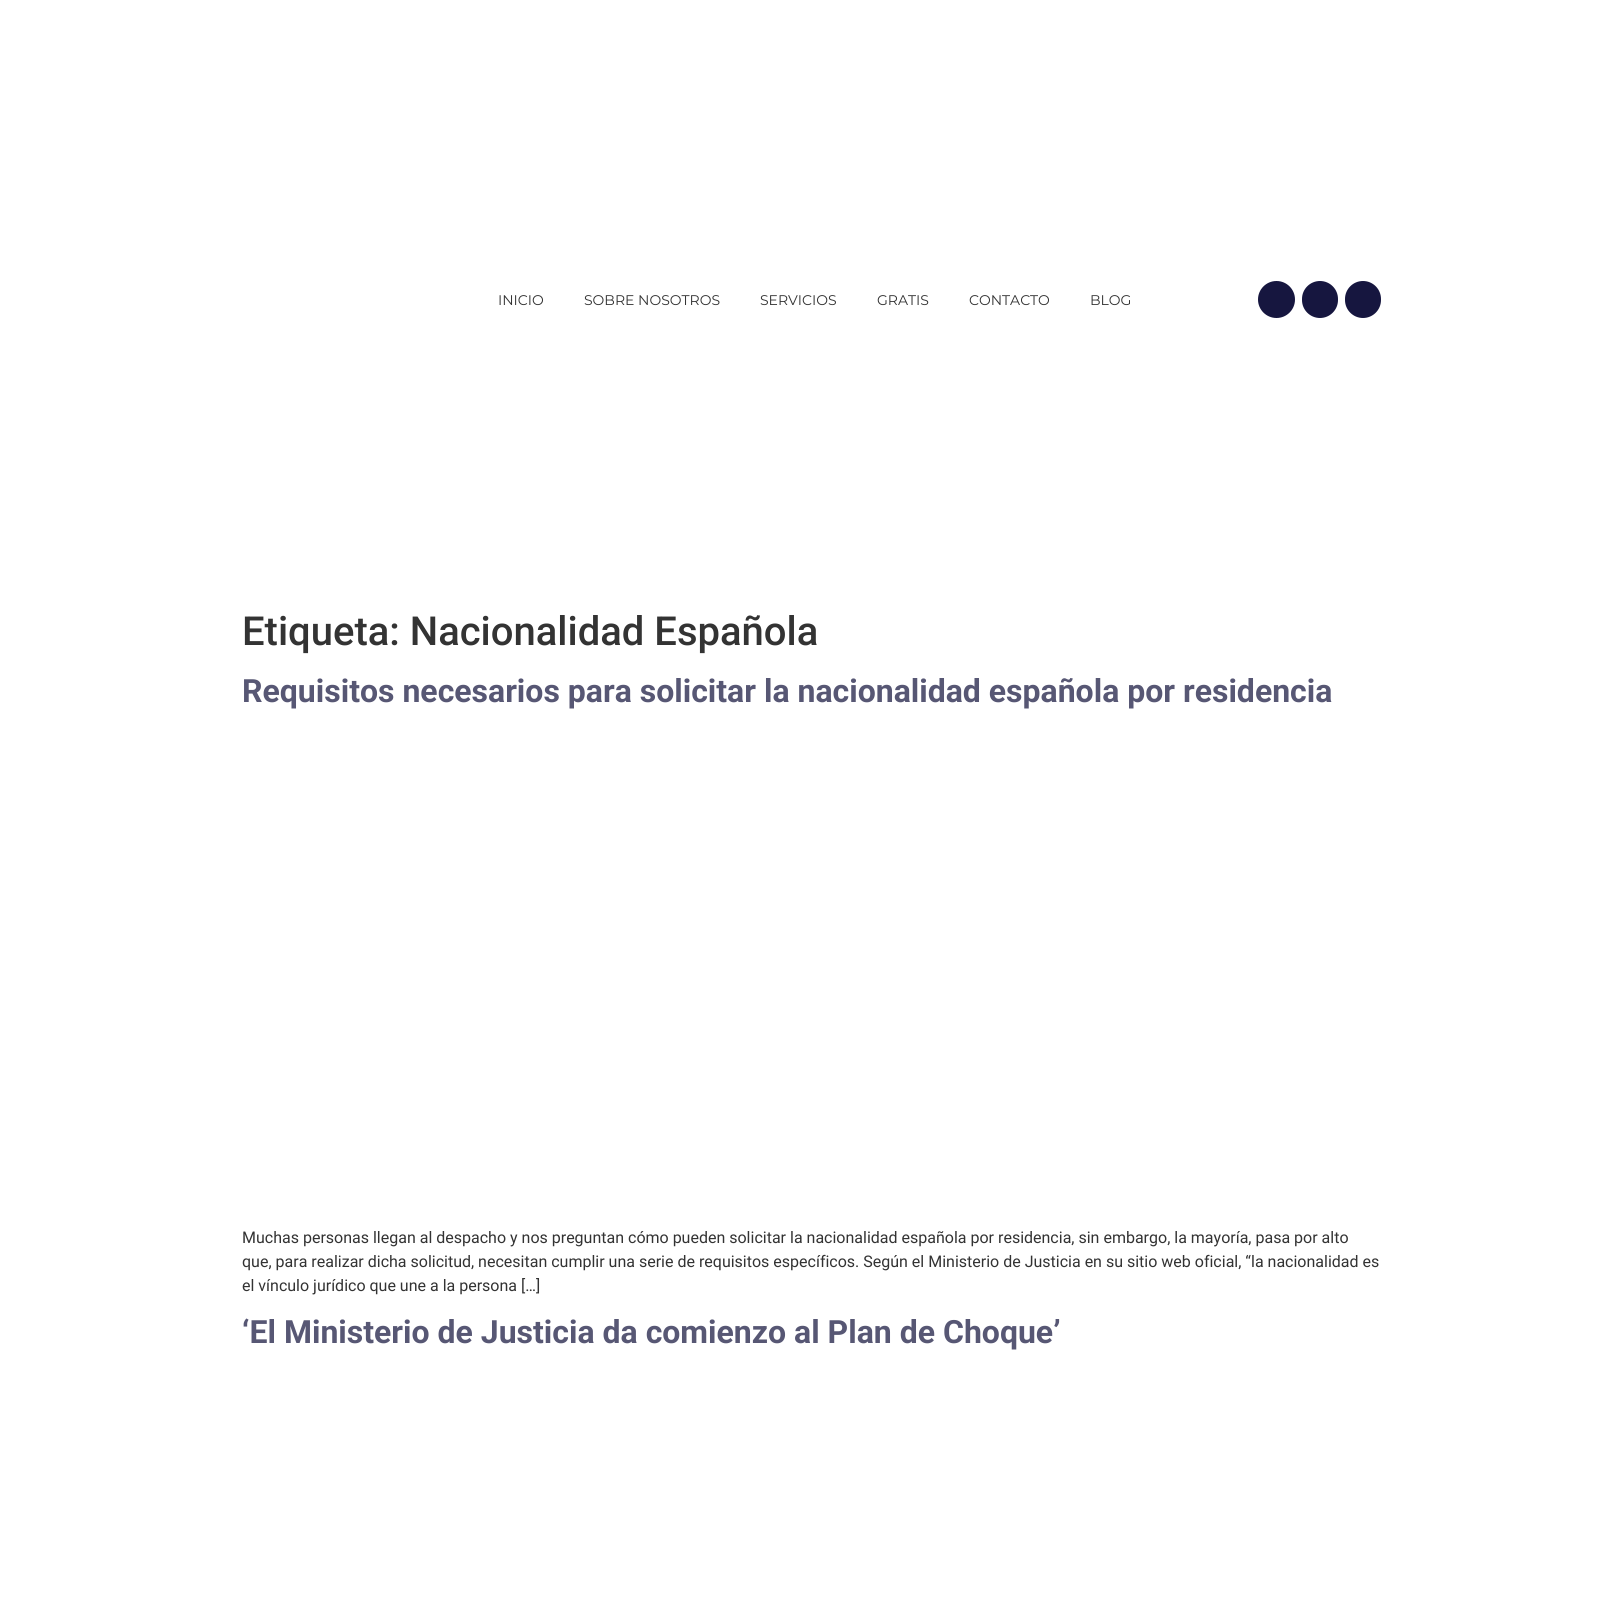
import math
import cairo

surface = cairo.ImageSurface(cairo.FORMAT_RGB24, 1623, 1614)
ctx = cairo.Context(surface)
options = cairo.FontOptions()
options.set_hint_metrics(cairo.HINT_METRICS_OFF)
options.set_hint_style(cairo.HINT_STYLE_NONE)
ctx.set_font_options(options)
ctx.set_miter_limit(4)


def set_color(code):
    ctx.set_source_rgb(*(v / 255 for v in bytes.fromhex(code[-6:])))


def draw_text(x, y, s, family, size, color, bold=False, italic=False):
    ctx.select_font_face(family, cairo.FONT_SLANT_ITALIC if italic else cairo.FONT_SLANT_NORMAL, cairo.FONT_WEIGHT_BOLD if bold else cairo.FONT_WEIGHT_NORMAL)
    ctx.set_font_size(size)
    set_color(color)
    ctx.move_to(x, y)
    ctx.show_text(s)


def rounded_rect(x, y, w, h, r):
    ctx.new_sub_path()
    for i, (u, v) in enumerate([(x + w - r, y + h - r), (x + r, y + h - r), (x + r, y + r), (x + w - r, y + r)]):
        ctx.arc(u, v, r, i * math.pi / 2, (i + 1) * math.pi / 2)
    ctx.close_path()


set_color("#ffffff")
ctx.paint()
draw_text(498, 305, "INICIO", "Montserrat", 14, "#333333")
draw_text(584, 305, "SOBRE NOSOTROS", "Montserrat", 14, "#333333")
draw_text(760, 305, "SERVICIOS", "Montserrat", 14, "#333333")
draw_text(877, 305, "GRATIS", "Montserrat", 14, "#333333")
draw_text(969, 305, "CONTACTO", "Montserrat", 14, "#333333")
draw_text(1090, 305, "BLOG", "Montserrat", 14, "#333333")
set_color("#16163f")
ctx.new_path()
ctx.arc(1276.5, 299.5, 18.5, 0, 2 * math.pi)
ctx.fill()
rounded_rect(1302, 281, 36, 37, 18)
ctx.fill()
rounded_rect(1345, 281, 36, 37, 18)
ctx.fill()
draw_text(242, 645, "Etiqueta: Nacionalidad Española", "Roboto Medium", 40, "#333333")
draw_text(242, 702, "Requisitos necesarios para solicitar la nacionalidad española por residencia", "Roboto", 32, "#575774", bold=True)
draw_text(242, 1243, "Muchas personas llegan al despacho y nos preguntan cómo pueden solicitar la nacionalidad española por residencia, sin embargo, la mayoría, pasa por alto", "Roboto", 16, "#333333")
draw_text(242, 1267, "que, para realizar dicha solicitud, necesitan cumplir una serie de requisitos específicos. Según el Ministerio de Justicia en su sitio web oficial, “la nacionalidad es", "Roboto", 16, "#333333")
draw_text(242, 1291, "el vínculo jurídico que une a la persona […]", "Roboto", 16, "#333333")
draw_text(242, 1343, "‘El Ministerio de Justicia da comienzo al Plan de Choque’", "Roboto", 32, "#575774", bold=True)
surface.write_to_png("output.png")
